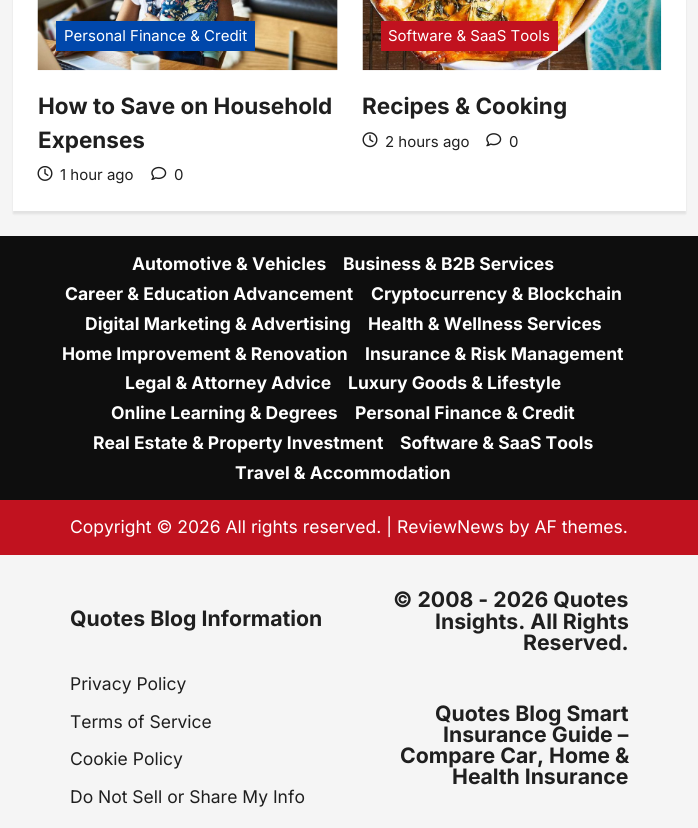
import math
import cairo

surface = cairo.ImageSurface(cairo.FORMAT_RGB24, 698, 828)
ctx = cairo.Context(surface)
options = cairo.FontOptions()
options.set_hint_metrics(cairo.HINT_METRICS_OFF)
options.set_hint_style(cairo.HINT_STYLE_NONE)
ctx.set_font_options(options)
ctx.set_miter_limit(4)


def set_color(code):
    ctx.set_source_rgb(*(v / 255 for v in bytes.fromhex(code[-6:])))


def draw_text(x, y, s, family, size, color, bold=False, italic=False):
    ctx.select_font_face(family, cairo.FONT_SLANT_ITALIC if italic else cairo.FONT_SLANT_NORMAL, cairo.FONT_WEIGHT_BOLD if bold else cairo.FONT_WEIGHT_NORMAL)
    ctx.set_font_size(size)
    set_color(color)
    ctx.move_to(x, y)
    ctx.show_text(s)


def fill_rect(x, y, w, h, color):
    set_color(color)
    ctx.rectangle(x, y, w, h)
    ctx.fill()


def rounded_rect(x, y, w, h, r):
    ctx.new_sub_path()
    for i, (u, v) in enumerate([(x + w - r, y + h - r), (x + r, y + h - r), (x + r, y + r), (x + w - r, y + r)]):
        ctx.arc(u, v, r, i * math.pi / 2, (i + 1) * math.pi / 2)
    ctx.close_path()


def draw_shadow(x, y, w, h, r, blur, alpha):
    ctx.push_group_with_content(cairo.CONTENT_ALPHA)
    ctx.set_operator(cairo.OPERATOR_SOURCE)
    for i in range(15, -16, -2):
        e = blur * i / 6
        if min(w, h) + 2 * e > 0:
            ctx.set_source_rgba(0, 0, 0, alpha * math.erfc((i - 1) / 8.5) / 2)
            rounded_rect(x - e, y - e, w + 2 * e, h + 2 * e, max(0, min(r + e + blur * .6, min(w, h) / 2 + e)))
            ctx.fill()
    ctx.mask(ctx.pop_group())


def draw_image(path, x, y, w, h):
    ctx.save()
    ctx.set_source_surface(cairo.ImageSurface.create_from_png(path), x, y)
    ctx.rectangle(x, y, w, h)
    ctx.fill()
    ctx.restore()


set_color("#f5f5f5")
ctx.paint()
set_color("#000000")
draw_shadow(13, -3, 673, 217, 0, 1, 0.08)
fill_rect(13, 0, 673, 211, "#ffffff")
fill_rect(337, 0, 1, 70, "#ececec")
draw_image("assets/img1.png", 37, 0, 301, 71)
fill_rect(56, 21, 199, 30, "#0047ab")
draw_text(64, 41, "Personal Finance & Credit", "Inter", 15, "#ffffff")
draw_text(38, 114, "How to Save on Household", "Inter", 22.5, "#1f1f1f", bold=True)
draw_text(38, 148, "Expenses", "Inter", 22.5, "#1f1f1f", bold=True)
draw_image("assets/img2.png", 37, 166, 16, 15)
draw_text(60, 180, "1 hour ago", "Inter", 15, "#1f1f1f")
draw_image("assets/img3.png", 151, 166, 16, 14)
draw_text(174, 180, "0", "Inter", 15, "#1f1f1f")
draw_image("assets/img4.png", 362, 0, 300, 71)
fill_rect(381, 21, 177, 30, "#c1121f")
draw_text(388, 41, "Software & SaaS Tools", "Inter", 15, "#ffffff")
draw_text(362, 114, "Recipes & Cooking", "Inter", 22.5, "#1f1f1f", bold=True)
draw_image("assets/img5.png", 362, 132, 16, 16)
draw_text(385, 147, "2 hours ago", "Inter", 15, "#1f1f1f")
draw_image("assets/img6.png", 486, 133, 16, 14)
draw_text(509, 147, "0", "Inter", 15, "#1f1f1f")
fill_rect(0, 236, 698, 264, "#0e0e0e")
draw_text(132, 270, "Automotive & Vehicles", "Inter", 17.5, "#ffffff", bold=True)
draw_text(343, 270, "Business & B2B Services", "Inter", 17.5, "#ffffff", bold=True)
draw_text(65, 300, "Career & Education Advancement", "Inter", 17.5, "#ffffff", bold=True)
draw_text(371, 300, "Cryptocurrency & Blockchain", "Inter", 17.5, "#ffffff", bold=True)
draw_text(85, 330, "Digital Marketing & Advertising", "Inter", 17.5, "#ffffff", bold=True)
draw_text(368, 330, "Health & Wellness Services", "Inter", 17.5, "#ffffff", bold=True)
draw_text(62, 360, "Home Improvement & Renovation", "Inter", 17.5, "#ffffff", bold=True)
draw_text(365, 360, "Insurance & Risk Management", "Inter", 17.5, "#ffffff", bold=True)
draw_text(125, 389, "Legal & Attorney Advice", "Inter", 17.5, "#ffffff", bold=True)
draw_text(348, 389, "Luxury Goods & Lifestyle", "Inter", 17.5, "#ffffff", bold=True)
draw_text(111, 419, "Online Learning & Degrees", "Inter", 17.5, "#ffffff", bold=True)
draw_text(355, 419, "Personal Finance & Credit", "Inter", 17.5, "#ffffff", bold=True)
draw_text(93, 449, "Real Estate & Property Investment", "Inter", 17.5, "#ffffff", bold=True)
draw_text(400, 449, "Software & SaaS Tools", "Inter", 17.5, "#ffffff", bold=True)
draw_text(235, 479, "Travel & Accommodation", "Inter", 17.5, "#ffffff", bold=True)
fill_rect(0, 500, 698, 55, "#c1121f")
draw_text(70, 533, "Copyright © 2026 All rights reserved. | ReviewNews by AF themes.", "Inter", 17.5, "#ffffff")
draw_text(70, 626, "Quotes Blog Information", "Inter", 21.25, "#1f1f1f", bold=True)
draw_text(70, 690, "Privacy Policy", "Inter", 17.5, "#1f1f1f")
draw_text(70, 728, "Terms of Service", "Inter", 17.5, "#1f1f1f")
draw_text(70, 765, "Cookie Policy", "Inter", 17.5, "#1f1f1f")
draw_text(70, 803, "Do Not Sell or Share My Info", "Inter", 17.5, "#1f1f1f")
draw_text(393, 607, "© 2008 - 2026 Quotes", "Inter", 21.25, "#1f1f1f", bold=True)
draw_text(435, 629, "Insights. All Rights", "Inter", 21.25, "#1f1f1f", bold=True)
draw_text(523, 650, "Reserved.", "Inter", 21.25, "#1f1f1f", bold=True)
draw_text(435, 721, "Quotes Blog Smart", "Inter", 21.25, "#1f1f1f", bold=True)
draw_text(443, 742, "Insurance Guide –", "Inter", 21.25, "#1f1f1f", bold=True)
draw_text(400, 763, "Compare Car, Home &", "Inter", 21.25, "#1f1f1f", bold=True)
draw_text(452, 784, "Health Insurance", "Inter", 21.25, "#1f1f1f", bold=True)
surface.write_to_png("output.png")
